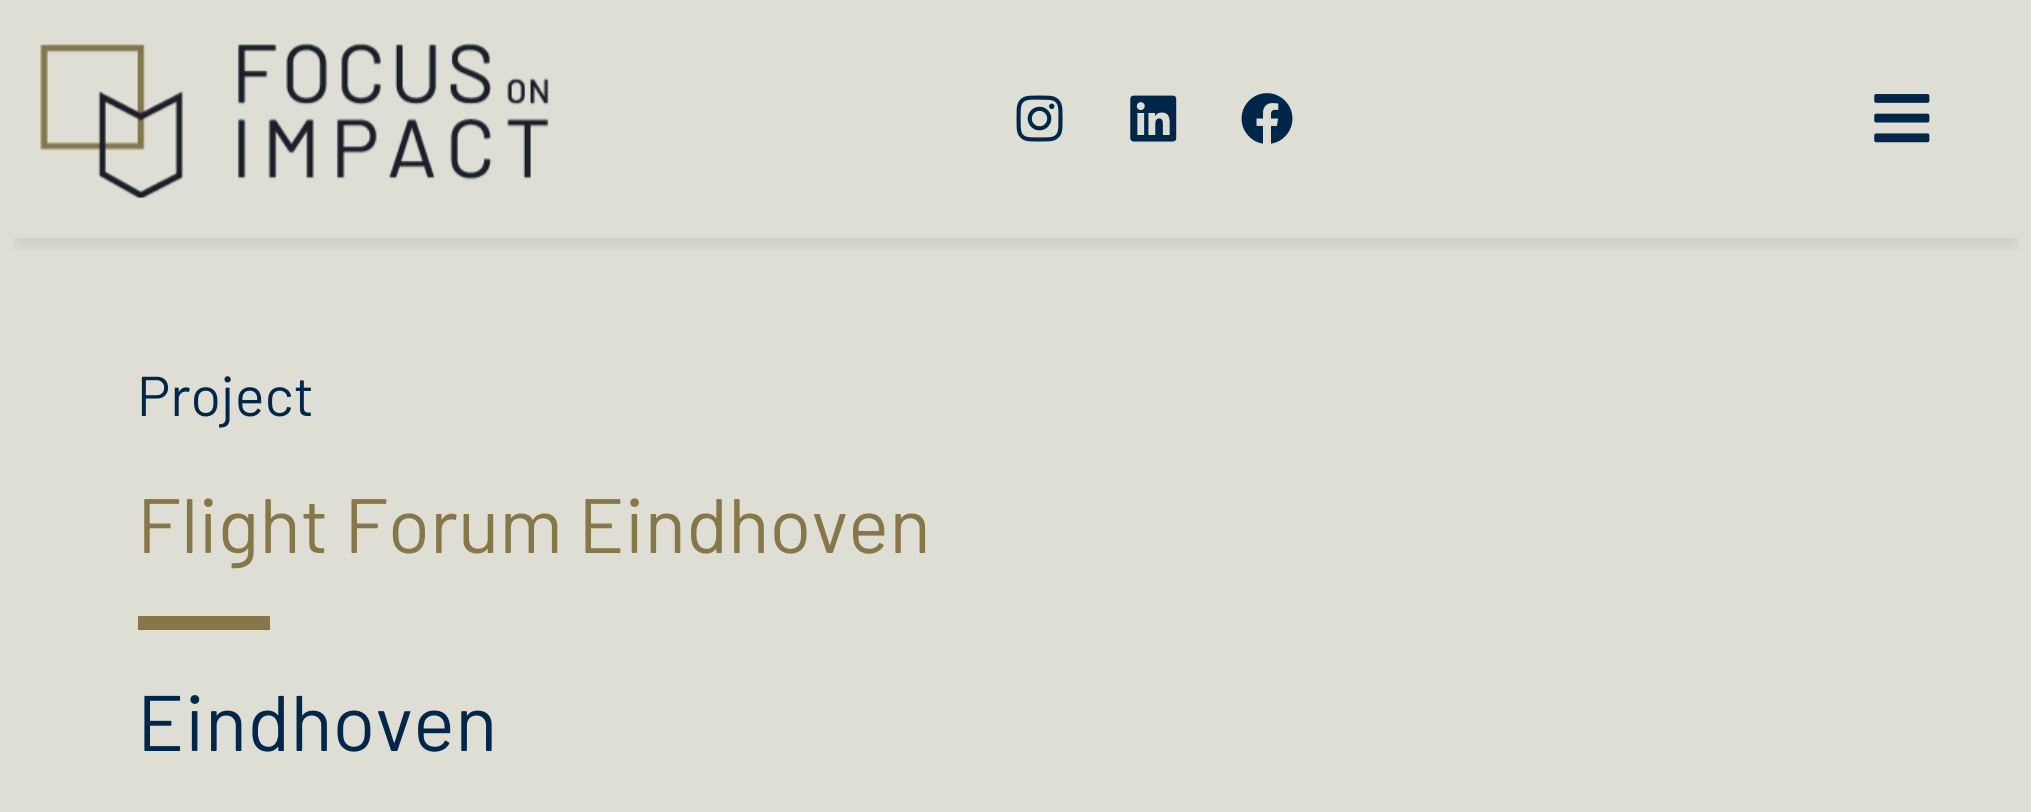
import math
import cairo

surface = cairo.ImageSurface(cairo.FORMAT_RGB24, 2031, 812)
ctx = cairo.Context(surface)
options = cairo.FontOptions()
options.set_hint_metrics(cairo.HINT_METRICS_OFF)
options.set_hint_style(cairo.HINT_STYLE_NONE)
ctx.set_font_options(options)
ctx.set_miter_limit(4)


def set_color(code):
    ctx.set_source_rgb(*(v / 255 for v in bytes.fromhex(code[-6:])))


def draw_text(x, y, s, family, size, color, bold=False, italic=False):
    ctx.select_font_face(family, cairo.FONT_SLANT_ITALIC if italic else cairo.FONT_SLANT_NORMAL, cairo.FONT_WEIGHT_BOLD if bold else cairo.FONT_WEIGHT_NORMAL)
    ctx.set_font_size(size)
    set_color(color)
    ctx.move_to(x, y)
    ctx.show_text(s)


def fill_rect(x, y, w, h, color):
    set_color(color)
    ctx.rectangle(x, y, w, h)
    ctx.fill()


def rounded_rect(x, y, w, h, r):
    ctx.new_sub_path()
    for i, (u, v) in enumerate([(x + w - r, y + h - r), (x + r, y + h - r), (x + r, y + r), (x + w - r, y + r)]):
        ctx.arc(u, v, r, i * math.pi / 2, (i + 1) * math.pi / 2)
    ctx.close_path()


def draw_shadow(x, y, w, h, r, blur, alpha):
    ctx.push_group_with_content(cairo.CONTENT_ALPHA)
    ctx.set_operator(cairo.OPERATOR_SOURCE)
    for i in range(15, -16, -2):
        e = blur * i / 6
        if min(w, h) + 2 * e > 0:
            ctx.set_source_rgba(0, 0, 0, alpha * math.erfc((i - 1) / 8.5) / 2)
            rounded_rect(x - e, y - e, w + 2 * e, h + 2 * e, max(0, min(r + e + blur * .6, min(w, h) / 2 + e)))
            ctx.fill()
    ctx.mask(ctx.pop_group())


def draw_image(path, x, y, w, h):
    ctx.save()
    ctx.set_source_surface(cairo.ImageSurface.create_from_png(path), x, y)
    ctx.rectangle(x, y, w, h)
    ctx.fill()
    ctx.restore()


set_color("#dfded5")
ctx.paint()
ctx.save()
ctx.rectangle(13, 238, 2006, 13)
ctx.clip()
set_color("#000000")
draw_shadow(18, 40, 1996, 203, 0, 9, 0.1)
ctx.restore()
draw_image("assets/img1.png", 40, 43, 509, 155)
draw_image("assets/img2.png", 1016, 95, 47, 47)
draw_image("assets/img3.png", 1130, 95, 47, 47)
draw_image("assets/img4.png", 1241, 93, 52, 51)
draw_image("assets/img5.png", 1874, 94, 56, 49)
draw_text(137, 416, "Project", "Barlow", 56, "#002649")
draw_text(137, 553, "Flight Forum Eindhoven", "Barlow", 77, "#877647")
fill_rect(138, 616, 132, 14, "#877648")
draw_text(137, 751, "Eindhoven", "Barlow", 78.75, "#002649")
surface.write_to_png("output.png")
